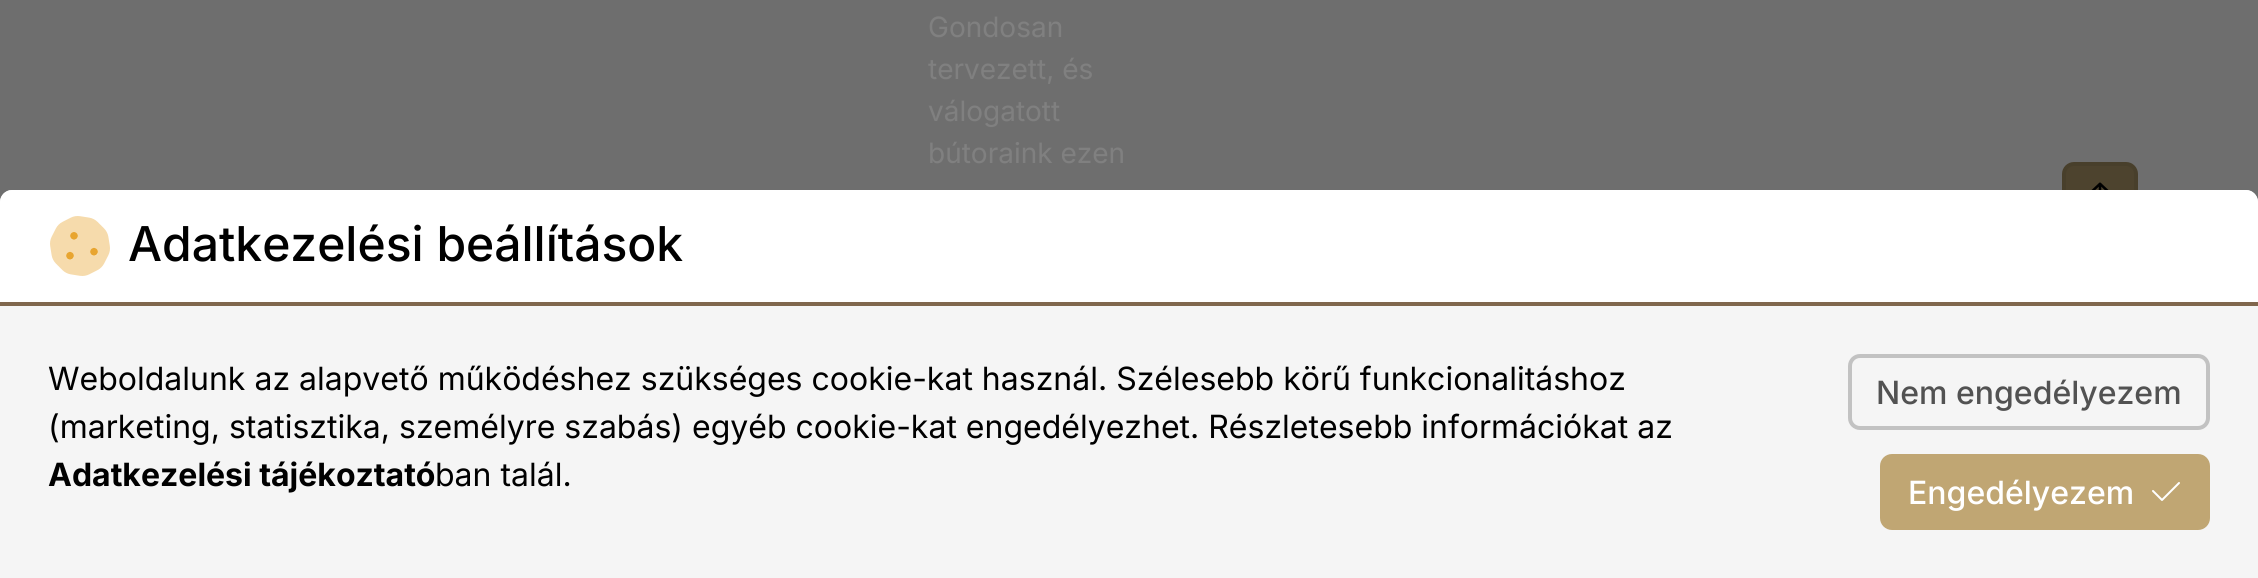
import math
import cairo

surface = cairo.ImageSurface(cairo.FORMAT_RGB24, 2258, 578)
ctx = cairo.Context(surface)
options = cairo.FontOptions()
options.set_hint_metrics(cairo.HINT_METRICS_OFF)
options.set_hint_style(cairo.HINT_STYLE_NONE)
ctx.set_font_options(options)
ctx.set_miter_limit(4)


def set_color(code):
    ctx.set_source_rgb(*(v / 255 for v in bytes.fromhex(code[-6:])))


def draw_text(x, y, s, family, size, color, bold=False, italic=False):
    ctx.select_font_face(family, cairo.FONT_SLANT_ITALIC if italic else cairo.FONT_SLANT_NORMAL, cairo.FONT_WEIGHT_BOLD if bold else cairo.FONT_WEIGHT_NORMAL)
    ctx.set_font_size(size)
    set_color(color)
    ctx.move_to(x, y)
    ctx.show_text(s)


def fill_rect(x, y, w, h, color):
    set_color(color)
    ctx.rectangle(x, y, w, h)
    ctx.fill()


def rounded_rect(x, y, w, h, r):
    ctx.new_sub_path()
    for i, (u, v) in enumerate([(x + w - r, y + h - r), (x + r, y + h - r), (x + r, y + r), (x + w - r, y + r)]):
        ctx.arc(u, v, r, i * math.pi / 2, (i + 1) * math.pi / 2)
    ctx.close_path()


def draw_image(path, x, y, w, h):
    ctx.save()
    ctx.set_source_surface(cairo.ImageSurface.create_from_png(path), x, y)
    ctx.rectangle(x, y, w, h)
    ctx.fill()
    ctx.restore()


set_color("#6e6e6e")
ctx.paint()
draw_text(928, 37, "Gondosan", "Inter", 28, "#808080")
draw_text(928, 79, "tervezett, és", "Inter", 28, "#808080")
draw_text(928, 121, "válogatott", "Inter", 28, "#808080")
draw_text(928, 163, "bútoraink ezen", "Inter", 28, "#808080")
set_color("#4d432e")
rounded_rect(2064, 164, 72, 72, 10)
ctx.fill_preserve()
set_color("#483f2b")
ctx.set_line_width(4)
ctx.stroke()
draw_image("assets/img1.png", 2091, 182, 18, 8)
set_color("#f5f5f5")
ctx.new_path()
ctx.move_to(12, 190)
ctx.line_to(2246, 190)
ctx.curve_to(2252.5, 190, 2258, 195.5, 2258, 202)
ctx.line_to(2258, 578)
ctx.line_to(0, 578)
ctx.line_to(0, 202)
ctx.curve_to(0, 195.5, 5.5, 190, 12, 190)
ctx.close_path()
ctx.fill()
set_color("#ffffff")
ctx.new_path()
ctx.move_to(12, 190)
ctx.line_to(2246, 190)
ctx.curve_to(2252.5, 190, 2258, 195.5, 2258, 202)
ctx.line_to(2258, 306)
ctx.line_to(0, 306)
ctx.line_to(0, 202)
ctx.curve_to(0, 195.5, 5.5, 190, 12, 190)
ctx.close_path()
ctx.fill()
fill_rect(0, 302, 2258, 4, "#80674d")
draw_image("assets/img2.png", 50, 216, 60, 60)
draw_text(128, 261, "Adatkezelési beállítások", "Inter Medium", 48, "#000000")
draw_text(48, 390, "Weboldalunk az alapvető működéshez szükséges cookie-kat használ. Szélesebb körű funkcionalitáshoz", "Inter", 32, "#000000")
draw_text(48, 438, "(marketing, statisztika, személyre szabás) egyéb cookie-kat engedélyezhet. Részletesebb információkat az", "Inter", 32, "#000000")
draw_text(48, 486, "Adatkezelési tájékoztató", "Inter", 32, "#000000", bold=True)
draw_text(435, 486, "ban talál.", "Inter", 32, "#000000")
rounded_rect(1850, 356, 358, 72, 10)
set_color("#c2c2c2")
ctx.stroke()
draw_text(1876, 404, "Nem engedélyezem", "Inter Medium", 32, "#525252")
set_color("#c0a673")
rounded_rect(1882, 456, 326, 72, 10)
ctx.fill_preserve()
ctx.stroke()
draw_text(1908, 504, "Engedélyezem", "Inter Medium", 32, "#ffffff")
draw_image("assets/img3.png", 2152, 482, 28, 19)
surface.write_to_png("output.png")
